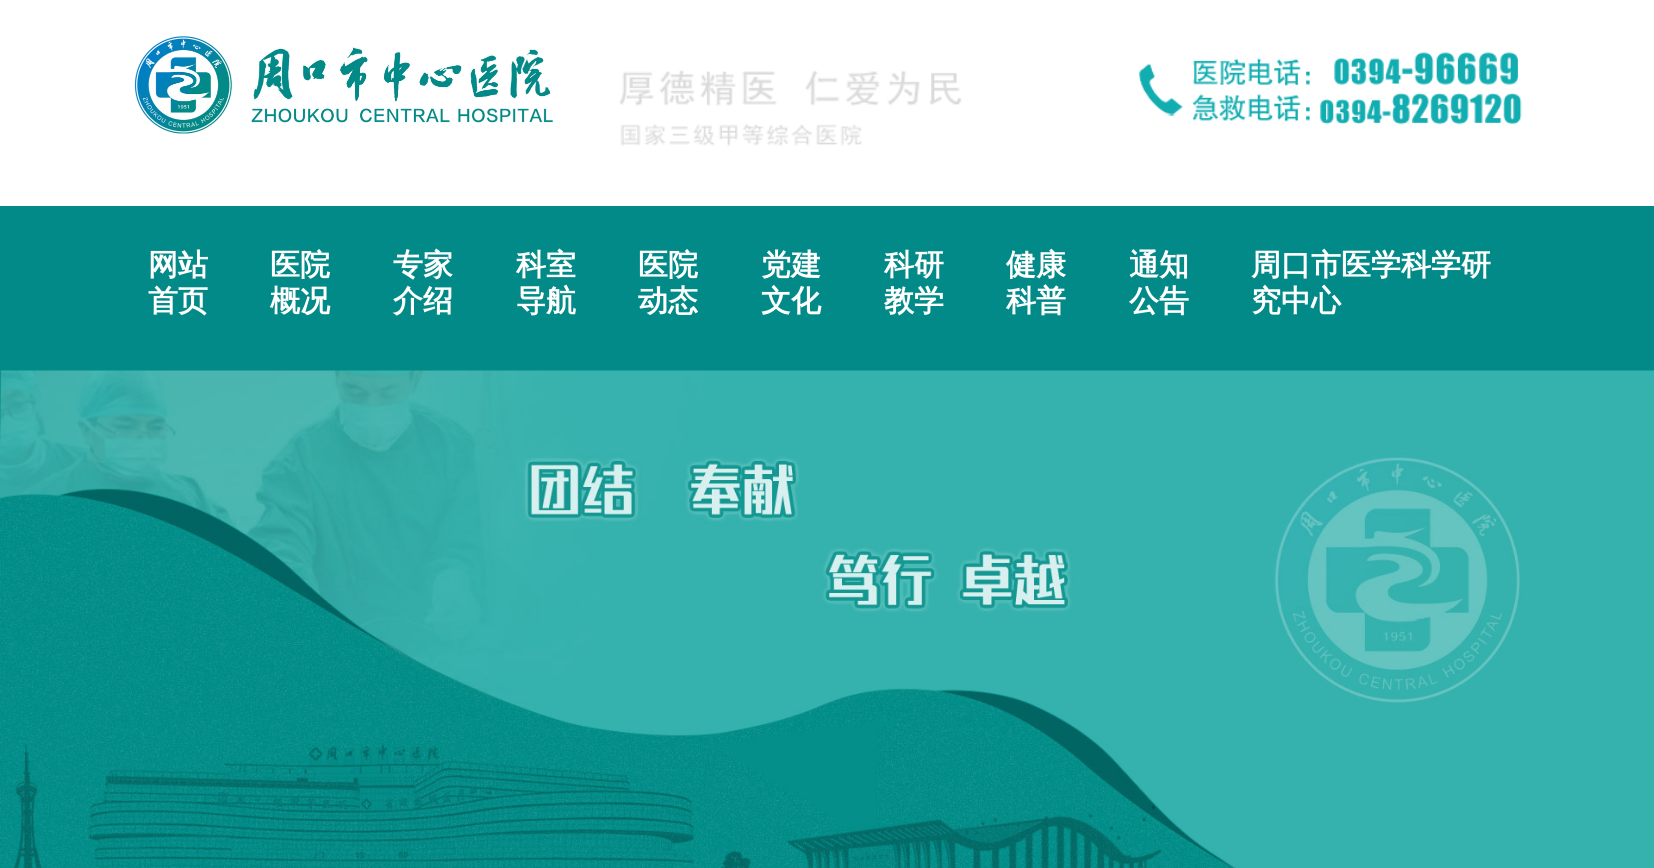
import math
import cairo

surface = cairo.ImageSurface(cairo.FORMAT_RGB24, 1654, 868)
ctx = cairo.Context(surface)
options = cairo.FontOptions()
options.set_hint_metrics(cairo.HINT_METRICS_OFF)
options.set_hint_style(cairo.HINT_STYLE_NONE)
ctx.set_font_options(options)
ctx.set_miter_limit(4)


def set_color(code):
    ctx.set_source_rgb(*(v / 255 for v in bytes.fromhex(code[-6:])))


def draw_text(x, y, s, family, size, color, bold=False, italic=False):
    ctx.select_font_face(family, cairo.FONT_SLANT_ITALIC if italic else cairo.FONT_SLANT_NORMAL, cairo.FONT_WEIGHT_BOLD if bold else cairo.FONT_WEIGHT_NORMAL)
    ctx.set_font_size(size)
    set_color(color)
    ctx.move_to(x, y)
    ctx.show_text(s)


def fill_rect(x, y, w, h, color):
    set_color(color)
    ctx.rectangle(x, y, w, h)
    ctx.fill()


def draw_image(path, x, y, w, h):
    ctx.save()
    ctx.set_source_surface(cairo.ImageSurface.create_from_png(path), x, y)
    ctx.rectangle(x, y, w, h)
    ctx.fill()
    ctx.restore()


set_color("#ffffff")
ctx.paint()
draw_image("assets/img1.png", 134, 36, 419, 98)
draw_image("assets/img2.png", 619, 70, 343, 76)
draw_image("assets/img3.png", 1138, 52, 384, 73)
fill_rect(0, 206, 1654, 165, "#028a88")
draw_text(148, 275, "网站", "WenQuanYi Zen Hei", 30, "#ffffff", bold=True)
draw_text(148, 311, "首页", "WenQuanYi Zen Hei", 30, "#ffffff", bold=True)
draw_text(270, 275, "医院", "WenQuanYi Zen Hei", 30, "#ffffff", bold=True)
draw_text(270, 311, "概况", "WenQuanYi Zen Hei", 30, "#ffffff", bold=True)
draw_text(393, 275, "专家", "WenQuanYi Zen Hei", 30, "#ffffff", bold=True)
draw_text(393, 311, "介绍", "WenQuanYi Zen Hei", 30, "#ffffff", bold=True)
draw_text(516, 275, "科室", "WenQuanYi Zen Hei", 30, "#ffffff", bold=True)
draw_text(516, 311, "导航", "WenQuanYi Zen Hei", 30, "#ffffff", bold=True)
draw_text(638, 275, "医院", "WenQuanYi Zen Hei", 30, "#ffffff", bold=True)
draw_text(638, 311, "动态", "WenQuanYi Zen Hei", 30, "#ffffff", bold=True)
draw_text(761, 275, "党建", "WenQuanYi Zen Hei", 30, "#ffffff", bold=True)
draw_text(761, 311, "文化", "WenQuanYi Zen Hei", 30, "#ffffff", bold=True)
draw_text(884, 275, "科研", "WenQuanYi Zen Hei", 30, "#ffffff", bold=True)
draw_text(884, 311, "教学", "WenQuanYi Zen Hei", 30, "#ffffff", bold=True)
draw_text(1006, 275, "健康", "WenQuanYi Zen Hei", 30, "#ffffff", bold=True)
draw_text(1006, 311, "科普", "WenQuanYi Zen Hei", 30, "#ffffff", bold=True)
draw_text(1129, 275, "通知", "WenQuanYi Zen Hei", 30, "#ffffff", bold=True)
draw_text(1129, 311, "公告", "WenQuanYi Zen Hei", 30, "#ffffff", bold=True)
draw_text(1251, 275, "周口市医学科学研", "WenQuanYi Zen Hei", 30, "#ffffff", bold=True)
draw_text(1251, 311, "究中心", "WenQuanYi Zen Hei", 30, "#ffffff", bold=True)
draw_image("assets/img4.png", 0, 370, 1654, 498)
surface.write_to_png("output.png")
